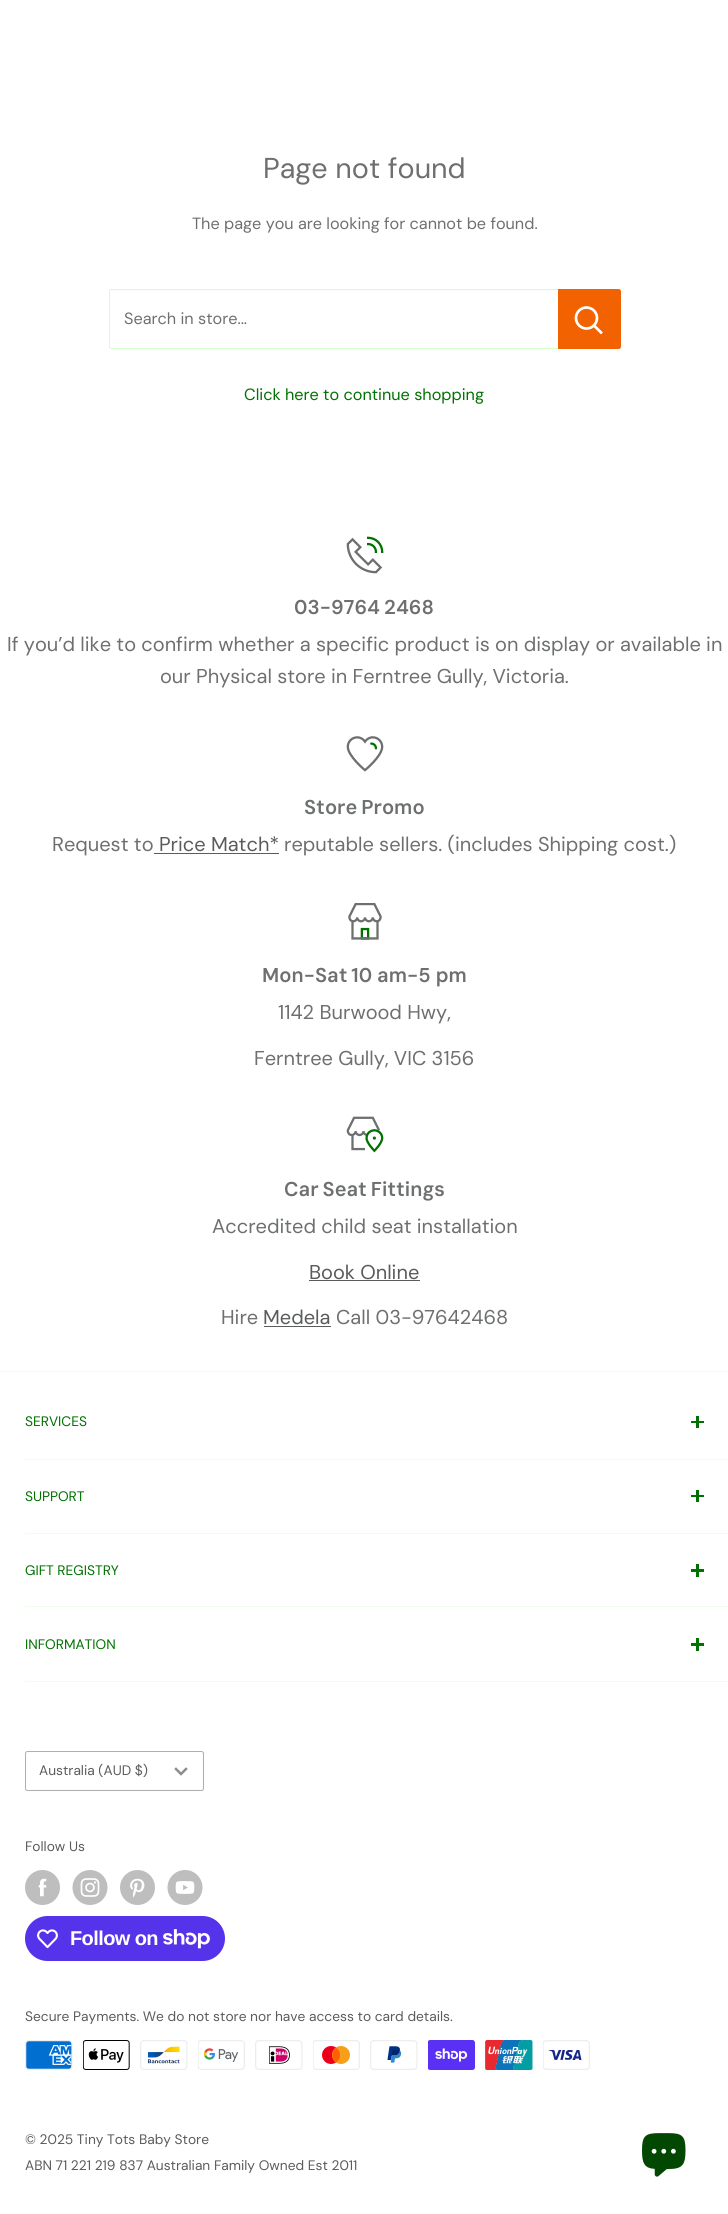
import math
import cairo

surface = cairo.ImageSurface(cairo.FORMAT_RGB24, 728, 2214)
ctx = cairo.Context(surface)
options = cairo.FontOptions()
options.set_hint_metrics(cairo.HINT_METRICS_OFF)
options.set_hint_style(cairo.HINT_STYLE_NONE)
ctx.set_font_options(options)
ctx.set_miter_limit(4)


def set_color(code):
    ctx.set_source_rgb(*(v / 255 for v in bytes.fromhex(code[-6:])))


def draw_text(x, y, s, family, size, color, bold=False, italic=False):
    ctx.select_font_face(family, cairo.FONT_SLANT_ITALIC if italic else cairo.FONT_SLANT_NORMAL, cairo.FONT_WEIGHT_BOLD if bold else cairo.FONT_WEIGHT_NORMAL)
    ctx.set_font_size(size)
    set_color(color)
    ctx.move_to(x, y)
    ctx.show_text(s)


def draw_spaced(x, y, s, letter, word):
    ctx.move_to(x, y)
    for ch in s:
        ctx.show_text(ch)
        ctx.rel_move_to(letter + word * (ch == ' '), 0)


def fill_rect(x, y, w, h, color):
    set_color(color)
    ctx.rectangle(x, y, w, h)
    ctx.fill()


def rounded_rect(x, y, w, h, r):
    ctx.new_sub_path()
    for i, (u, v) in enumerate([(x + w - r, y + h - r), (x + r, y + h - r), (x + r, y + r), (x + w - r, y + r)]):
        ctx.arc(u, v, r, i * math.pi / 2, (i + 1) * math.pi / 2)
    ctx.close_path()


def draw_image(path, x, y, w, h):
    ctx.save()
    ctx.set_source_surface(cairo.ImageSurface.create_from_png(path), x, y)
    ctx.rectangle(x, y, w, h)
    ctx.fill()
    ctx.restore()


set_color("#ffffff")
ctx.paint()
draw_text(263, 178, "Page not found", "DM Sans", 28.75, "#6d6f70")
draw_text(192, 229, "The page you are looking for cannot be found.", "DM Sans", 16.25, "#6d6f70")
set_color("#fafffa")
ctx.new_path()
ctx.move_to(111, 291)
ctx.line_to(558, 291)
ctx.line_to(558, 290)
ctx.line_to(111, 290)
ctx.line_to(110, 291)
ctx.line_to(110, 292)
ctx.close_path()
ctx.fill()
fill_rect(110, 289, 448, 1, "#d4ffcf")
fill_rect(110, 348, 448, 1, "#d4ffcf")
fill_rect(109, 290, 1, 58, "#d4ffcf")
draw_text(124, 324, "Search in store...", "DM Sans", 16.25, "#6d6f70")
set_color("#f26200")
ctx.new_path()
ctx.move_to(558, 289)
ctx.line_to(618.5, 289)
ctx.curve_to(620, 289, 621, 290, 621, 291.5)
ctx.line_to(621, 346.5)
ctx.curve_to(621, 348, 620, 349, 618.5, 349)
ctx.line_to(558, 349)
ctx.close_path()
ctx.fill()
ctx.new_path()
ctx.move_to(601, 332.5)
ctx.line_to(594, 325.5)
set_color("#ffffff")
ctx.set_line_width(2.7)
ctx.set_line_cap(cairo.LINE_CAP_SQUARE)
ctx.stroke()
ctx.arc(586.5, 318, 10.5, 0, 2 * math.pi)
ctx.set_line_cap(cairo.LINE_CAP_BUTT)
ctx.stroke()
draw_text(244, 400, "Click here to continue shopping", "DM Sans", 16.25, "#017101")
draw_image("assets/img1.png", 346, 536, 38, 38)
ctx.select_font_face("DM Sans SemiBold")
ctx.set_font_size(20)
set_color("#6d6f70")
draw_spaced(294, 614, "03-9764 2468", 0, -1)
draw_text(7, 651, "If you’d like to confirm whether a specific product is on display or available in", "DM Sans", 20, "#6d6f70")
draw_text(160, 683, "our Physical store in Ferntree Gully, Victoria.", "DM Sans", 20, "#6d6f70")
draw_image("assets/img2.png", 346, 736, 38, 36)
ctx.select_font_face("DM Sans SemiBold")
draw_spaced(304, 814, "Store Promo", 0, -1)
draw_text(52, 851, "Request to", "DM Sans", 20, "#6d6f70")
draw_text(159, 851, "Price Match*", "DM Sans", 20, "#5a5c5b")
fill_rect(154, 853, 125, 1, "#5a5c5b")
draw_text(284, 851, "reputable sellers. (includes Shipping cost.)", "DM Sans", 20, "#6d6f70")
draw_image("assets/img3.png", 348, 903, 34, 37)
draw_text(262, 982, "Mon-Sat", "DM Sans SemiBold", 20, "#6d6f70")
draw_text(351, 982, "10 am-5 pm", "DM Sans SemiBold", 20, "#6d6f70")
draw_text(278, 1019, "1142 Burwood Hwy,", "DM Sans", 20, "#6d6f70")
draw_text(254, 1065, "Ferntree Gully, VIC 3156", "DM Sans", 20, "#6d6f70")
draw_image("assets/img4.png", 346, 1116, 38, 37)
ctx.select_font_face("DM Sans SemiBold")
draw_spaced(284, 1196, "Car Seat Fittings", 0, -1)
draw_text(212, 1233, "Accredited child seat installation", "DM Sans", 20, "#6d6f70")
draw_text(309, 1279, "Book Online", "DM Sans", 20, "#5a5c5b")
fill_rect(309, 1280, 111, 1, "#5a5c5b")
draw_text(221, 1324, "Hire", "DM Sans", 20, "#6d6f70")
draw_text(263, 1324, "Medela", "DM Sans", 20, "#5a5c5b")
fill_rect(264, 1326, 67, 1, "#5a5c5b")
draw_text(336, 1324, "Call 03-97642468", "DM Sans", 20, "#6d6f70")
fill_rect(0, 1371, 728, 1, "#ebffe9")
fill_rect(25, 1459, 703, 1, "#ebffe9")
draw_text(25, 1426, "SERVICES", "DM Sans", 13.75, "#017101")
fill_rect(696, 1416, 3, 12, "#017101")
fill_rect(691, 1421, 13, 2, "#017101")
fill_rect(25, 1533, 703, 1, "#ebffe9")
draw_text(25, 1501, "SUPPORT", "DM Sans", 13.75, "#017101")
fill_rect(696, 1490, 3, 12, "#017101")
fill_rect(691, 1495, 13, 2, "#017101")
fill_rect(25, 1606, 703, 1, "#ebffe9")
draw_text(25, 1575, "GIFT REGISTRY", "DM Sans", 13.75, "#017101")
fill_rect(696, 1564, 3, 13, "#017101")
fill_rect(691, 1569, 13, 3, "#017101")
fill_rect(25, 1681, 703, 1, "#ebffe9")
draw_text(25, 1649, "INFORMATION", "DM Sans", 13.75, "#017101")
fill_rect(696, 1638, 3, 13, "#017101")
fill_rect(691, 1643, 13, 3, "#017101")
set_color("#f9fff8")
ctx.new_path()
ctx.move_to(26, 1788)
ctx.line_to(26, 1789)
ctx.curve_to(26, 1790, 26, 1790, 27, 1790)
ctx.line_to(202, 1790)
ctx.curve_to(203, 1790, 203, 1790, 203, 1789)
ctx.line_to(203, 1754)
ctx.curve_to(203, 1753, 203, 1753, 202, 1753)
ctx.line_to(202, 1788)
ctx.curve_to(202, 1788, 202, 1789, 201, 1789)
ctx.line_to(28, 1789)
ctx.curve_to(27, 1789, 26, 1788, 26, 1788)
ctx.close_path()
ctx.fill()
rounded_rect(25.5, 1751.5, 178, 39, 2)
set_color("#adaead")
ctx.set_line_width(1)
ctx.stroke()
draw_text(39, 1775, "Australia (AUD $)", "DM Sans", 13.75, "#5a5c5b")
ctx.new_path()
ctx.move_to(186, 1769)
ctx.line_to(181, 1774)
ctx.line_to(176, 1769)
set_color("#8c8d8c")
ctx.set_line_width(2.5)
ctx.set_line_cap(cairo.LINE_CAP_SQUARE)
ctx.stroke()
draw_text(25, 1851, "Follow Us", "DM Sans", 13.75, "#5a5c5b")
draw_image("assets/img5.png", 25, 1870, 35, 35)
draw_image("assets/img6.png", 72, 1870, 36, 35)
draw_image("assets/img7.png", 120, 1870, 35, 35)
draw_image("assets/img8.png", 167, 1870, 36, 35)
set_color("#5433eb")
rounded_rect(25, 1916, 200, 45, 22.5)
ctx.fill()
draw_image("assets/img9.png", 37, 1929, 21, 20)
ctx.select_font_face("Liberation Sans", cairo.FONT_SLANT_NORMAL, cairo.FONT_WEIGHT_BOLD)
ctx.set_font_size(20)
set_color("#ffffff")
draw_spaced(70, 1945, "Follow on", -0.6, 0)
draw_image("assets/img10.png", 163, 1929, 47, 20)
draw_text(25, 2021, "Secure Payments. We do not store nor have access to card details.", "DM Sans", 13.75, "#5a5c5b")
draw_image("assets/img11.png", 25, 2040, 48, 30)
draw_image("assets/img12.png", 83, 2040, 47, 30)
draw_image("assets/img13.png", 140, 2040, 48, 30)
draw_image("assets/img14.png", 198, 2040, 47, 30)
draw_image("assets/img15.png", 255, 2040, 48, 30)
draw_image("assets/img16.png", 313, 2040, 47, 30)
draw_image("assets/img17.png", 370, 2040, 48, 30)
draw_image("assets/img18.png", 428, 2040, 47, 30)
draw_image("assets/img19.png", 485, 2040, 48, 30)
draw_image("assets/img20.png", 543, 2040, 47, 30)
draw_text(25, 2144, "© 2025 Tiny Tots Baby Store", "DM Sans", 13.75, "#5a5c5b")
draw_text(25, 2170, "ABN 71 221 219 837 Australian Family Owned Est 2011", "DM Sans", 13.75, "#5a5c5b")
draw_image("assets/img21.png", 642, 2133, 44, 44)
surface.write_to_png("output.png")
